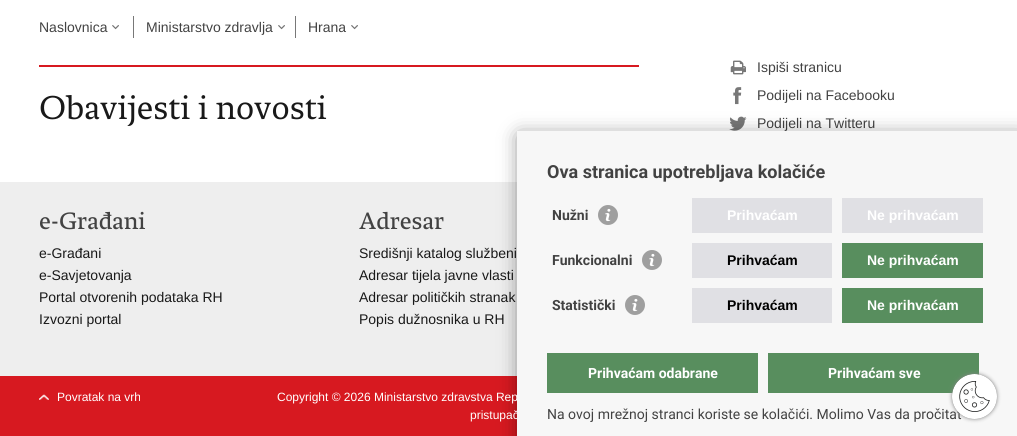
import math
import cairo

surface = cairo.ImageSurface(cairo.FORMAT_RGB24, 1017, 436)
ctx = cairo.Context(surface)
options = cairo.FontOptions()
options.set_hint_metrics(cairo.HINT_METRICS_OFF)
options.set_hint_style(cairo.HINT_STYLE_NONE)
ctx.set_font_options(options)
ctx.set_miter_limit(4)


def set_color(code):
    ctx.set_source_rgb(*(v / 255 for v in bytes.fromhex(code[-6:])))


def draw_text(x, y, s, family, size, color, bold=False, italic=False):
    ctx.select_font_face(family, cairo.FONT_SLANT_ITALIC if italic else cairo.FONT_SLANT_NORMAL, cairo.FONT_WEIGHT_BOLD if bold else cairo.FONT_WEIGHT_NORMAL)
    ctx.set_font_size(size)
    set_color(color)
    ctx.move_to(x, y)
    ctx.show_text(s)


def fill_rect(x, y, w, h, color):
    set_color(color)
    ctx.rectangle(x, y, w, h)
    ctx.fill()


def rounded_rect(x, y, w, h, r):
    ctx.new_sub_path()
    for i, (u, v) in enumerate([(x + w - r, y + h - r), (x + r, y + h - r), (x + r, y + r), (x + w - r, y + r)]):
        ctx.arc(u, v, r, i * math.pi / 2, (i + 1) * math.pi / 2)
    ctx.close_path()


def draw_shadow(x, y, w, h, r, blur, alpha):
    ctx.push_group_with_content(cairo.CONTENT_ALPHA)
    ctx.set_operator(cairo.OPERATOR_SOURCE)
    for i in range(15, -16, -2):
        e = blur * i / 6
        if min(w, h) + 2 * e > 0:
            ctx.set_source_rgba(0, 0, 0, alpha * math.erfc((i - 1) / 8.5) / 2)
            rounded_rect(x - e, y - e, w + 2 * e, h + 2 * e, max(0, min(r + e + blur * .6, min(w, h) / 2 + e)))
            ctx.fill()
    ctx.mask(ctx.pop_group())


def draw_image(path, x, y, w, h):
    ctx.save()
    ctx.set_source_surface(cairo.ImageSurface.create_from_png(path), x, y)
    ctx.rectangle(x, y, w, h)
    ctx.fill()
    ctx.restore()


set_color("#ffffff")
ctx.paint()
draw_text(39, 32, "Naslovnica", "Liberation Sans", 14, "#424242")
draw_image("assets/img1.png", 112, 25, 7, 5)
fill_rect(133, 16, 1, 22, "#787878")
draw_text(146, 32, "Ministarstvo zdravlja", "Liberation Sans", 14, "#424242")
draw_image("assets/img1.png", 278, 25, 7, 5)
fill_rect(295, 16, 1, 22, "#787878")
draw_text(308, 32, "Hrana", "Liberation Sans", 14, "#424242")
draw_image("assets/img1.png", 351, 25, 7, 5)
fill_rect(39, 65, 600, 2, "#d71920")
draw_text(39, 119, "Obavijesti i novosti", "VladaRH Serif", 35, "#191919")
draw_image("assets/img2.png", 730, 60, 16, 15)
draw_text(757, 72, "Ispiši stranicu", "Liberation Sans", 14, "#424242")
draw_image("assets/img3.png", 733, 87, 9, 18)
draw_text(757, 100, "Podijeli na Facebooku", "Liberation Sans", 14, "#424242")
draw_image("assets/img4.png", 729, 116, 18, 15)
draw_text(757, 128, "Podijeli na Twitteru", "Liberation Sans", 14, "#424242")
fill_rect(0, 182, 517, 194, "#eeeeee")
draw_text(39, 229, "e-Građani", "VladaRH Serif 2", 25, "#424242")
draw_text(39, 258, "e-Građani", "Liberation Sans", 14, "#191919")
draw_text(39, 280, "e-Savjetovanja", "Liberation Sans", 14, "#191919")
draw_text(39, 302, "Portal otvorenih podataka RH", "Liberation Sans", 14, "#191919")
draw_text(39, 324, "Izvozni portal", "Liberation Sans", 14, "#191919")
draw_text(359, 229, "Adresar", "VladaRH Serif 2", 25, "#424242")
draw_text(359, 258, "Središnji katalog službeni", "Liberation Sans", 14, "#191919")
draw_text(359, 280, "Adresar tijela javne vlasti", "Liberation Sans", 14, "#191919")
draw_text(359, 302, "Adresar političkih stranak", "Liberation Sans", 14, "#191919")
draw_text(359, 324, "Popis dužnosnika u RH", "Liberation Sans", 14, "#191919")
fill_rect(0, 376, 517, 60, "#d71920")
set_color("#000000")
draw_shadow(520, 136, 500, 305, 0, 10, 0.5)
draw_text(277, 401, "Copyright © 2026 Ministarstvo zdravstva Rep", "Liberation Sans", 12, "#ffffff")
draw_text(470, 419, "pristupač", "Liberation Sans", 12, "#ffffff")
fill_rect(517, 131, 500, 305, "#f7f7f7")
draw_text(547, 178, "Ova stranica upotrebljava kolačiće", "Roboto", 18, "#424242", bold=True)
draw_text(552, 220, "Nužni", "Roboto", 14, "#424242", bold=True)
draw_image("assets/img5.png", 598, 205, 20, 20)
fill_rect(692, 198, 140, 35, "#e0e0e4")
draw_text(727, 220, "Prihvaćam", "Liberation Sans", 14, "#ffffff", bold=True)
fill_rect(842, 198, 141, 35, "#e0e0e4")
draw_text(867, 220, "Ne prihvaćam", "Liberation Sans", 14, "#ffffff", bold=True)
draw_text(552, 265, "Funkcionalni", "Roboto", 14, "#424242", bold=True)
draw_image("assets/img5.png", 642, 250, 20, 20)
fill_rect(692, 243, 140, 35, "#e0e0e4")
draw_text(727, 265, "Prihvaćam", "Liberation Sans", 14, "#000000", bold=True)
fill_rect(842, 243, 141, 35, "#588e5e")
draw_text(867, 265, "Ne prihvaćam", "Liberation Sans", 14, "#ffffff", bold=True)
draw_text(552, 310, "Statistički", "Roboto", 14, "#424242", bold=True)
draw_image("assets/img5.png", 625, 295, 20, 20)
fill_rect(692, 288, 140, 35, "#e0e0e4")
draw_text(727, 310, "Prihvaćam", "Liberation Sans", 14, "#000000", bold=True)
fill_rect(842, 288, 141, 35, "#588e5e")
draw_text(867, 310, "Ne prihvaćam", "Liberation Sans", 14, "#ffffff", bold=True)
fill_rect(547, 353, 211, 40, "#588e5e")
draw_text(588, 378, "Prihvaćam odabrane", "Roboto", 14, "#ffffff", bold=True)
fill_rect(768, 353, 211, 40, "#588e5e")
draw_text(828, 378, "Prihvaćam sve", "Roboto", 14, "#ffffff", bold=True)
draw_text(547, 419, "Na ovoj mrežnoj stranci koriste se kolačići. Molimo Vas da pročitat", "Roboto", 14, "#424242")
draw_image("assets/img6.png", 39, 394, 10, 6)
draw_text(57, 401, "Povratak na vrh", "Liberation Sans", 12, "#ffffff")
set_color("#858585")
draw_shadow(952, 374, 45, 45, 22.5, 2, 1)
draw_image("assets/img7.png", 952, 374, 45, 45)
surface.write_to_png("output.png")
